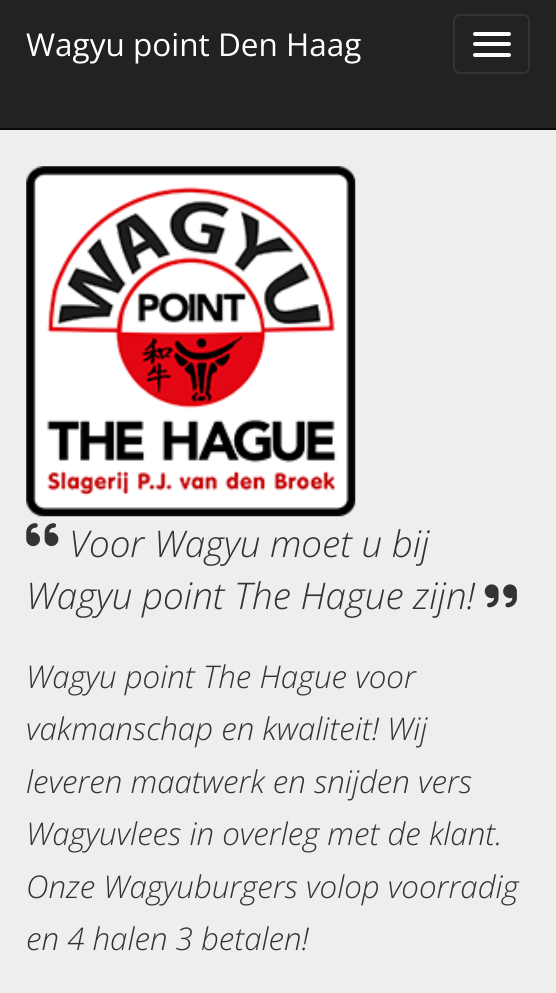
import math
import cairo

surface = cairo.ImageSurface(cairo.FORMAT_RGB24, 556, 993)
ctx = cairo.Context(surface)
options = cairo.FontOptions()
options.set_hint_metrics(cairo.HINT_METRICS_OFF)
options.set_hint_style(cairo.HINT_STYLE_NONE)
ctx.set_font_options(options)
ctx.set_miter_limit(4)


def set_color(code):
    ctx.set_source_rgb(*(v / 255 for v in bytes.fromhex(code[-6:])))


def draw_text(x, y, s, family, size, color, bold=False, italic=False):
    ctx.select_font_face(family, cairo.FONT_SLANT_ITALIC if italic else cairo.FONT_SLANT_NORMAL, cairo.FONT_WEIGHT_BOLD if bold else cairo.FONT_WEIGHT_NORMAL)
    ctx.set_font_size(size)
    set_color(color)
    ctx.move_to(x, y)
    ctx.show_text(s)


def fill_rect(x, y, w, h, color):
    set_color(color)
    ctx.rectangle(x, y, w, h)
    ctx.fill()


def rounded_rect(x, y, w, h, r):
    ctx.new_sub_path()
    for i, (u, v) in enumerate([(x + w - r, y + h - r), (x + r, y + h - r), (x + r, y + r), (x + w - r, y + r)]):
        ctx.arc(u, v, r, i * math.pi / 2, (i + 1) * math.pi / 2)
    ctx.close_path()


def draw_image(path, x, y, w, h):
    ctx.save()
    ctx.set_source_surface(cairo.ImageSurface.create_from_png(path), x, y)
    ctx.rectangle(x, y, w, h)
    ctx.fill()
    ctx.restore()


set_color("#eeeeee")
ctx.paint()
fill_rect(0, 0, 556, 128, "#222222")
fill_rect(0, 128, 556, 2, "#080808")
draw_text(26, 56, "Wagyu point Den Haag", "Open Sans", 31.5, "#ffffff")
rounded_rect(454, 15, 75, 58, 6)
set_color("#333333")
ctx.stroke()
set_color("#ffffff")
rounded_rect(473, 32, 38, 4, 2)
ctx.fill()
rounded_rect(473, 42, 38, 4, 2)
ctx.fill()
rounded_rect(473, 53, 38, 4, 2)
ctx.fill()
draw_image("assets/img1.png", 26, 166, 330, 351)
draw_image("assets/img2.png", 26, 523, 33, 24)
draw_text(69, 557, "Voor Wagyu moet u bij", "Open Sans Light", 36.75, "#333333", italic=True)
draw_text(26, 609, "Wagyu point The Hague zijn!", "Open Sans Light", 36.75, "#333333", italic=True)
draw_image("assets/img3.png", 484, 584, 33, 24)
draw_text(26, 688, "Wagyu point The Hague voor", "Open Sans Light", 31.25, "#333333", italic=True)
draw_text(26, 740, "vakmanschap en kwaliteit! Wij", "Open Sans Light", 31.25, "#333333", italic=True)
draw_text(26, 793, "leveren maatwerk en snijden vers", "Open Sans Light", 31.25, "#333333", italic=True)
draw_text(26, 845, "Wagyuvlees in overleg met de klant.", "Open Sans Light", 31.25, "#333333", italic=True)
draw_text(26, 898, "Onze Wagyuburgers volop voorradig", "Open Sans Light", 31.25, "#333333", italic=True)
draw_text(26, 950, "en 4 halen 3 betalen!", "Open Sans Light", 31.25, "#333333", italic=True)
surface.write_to_png("output.png")
